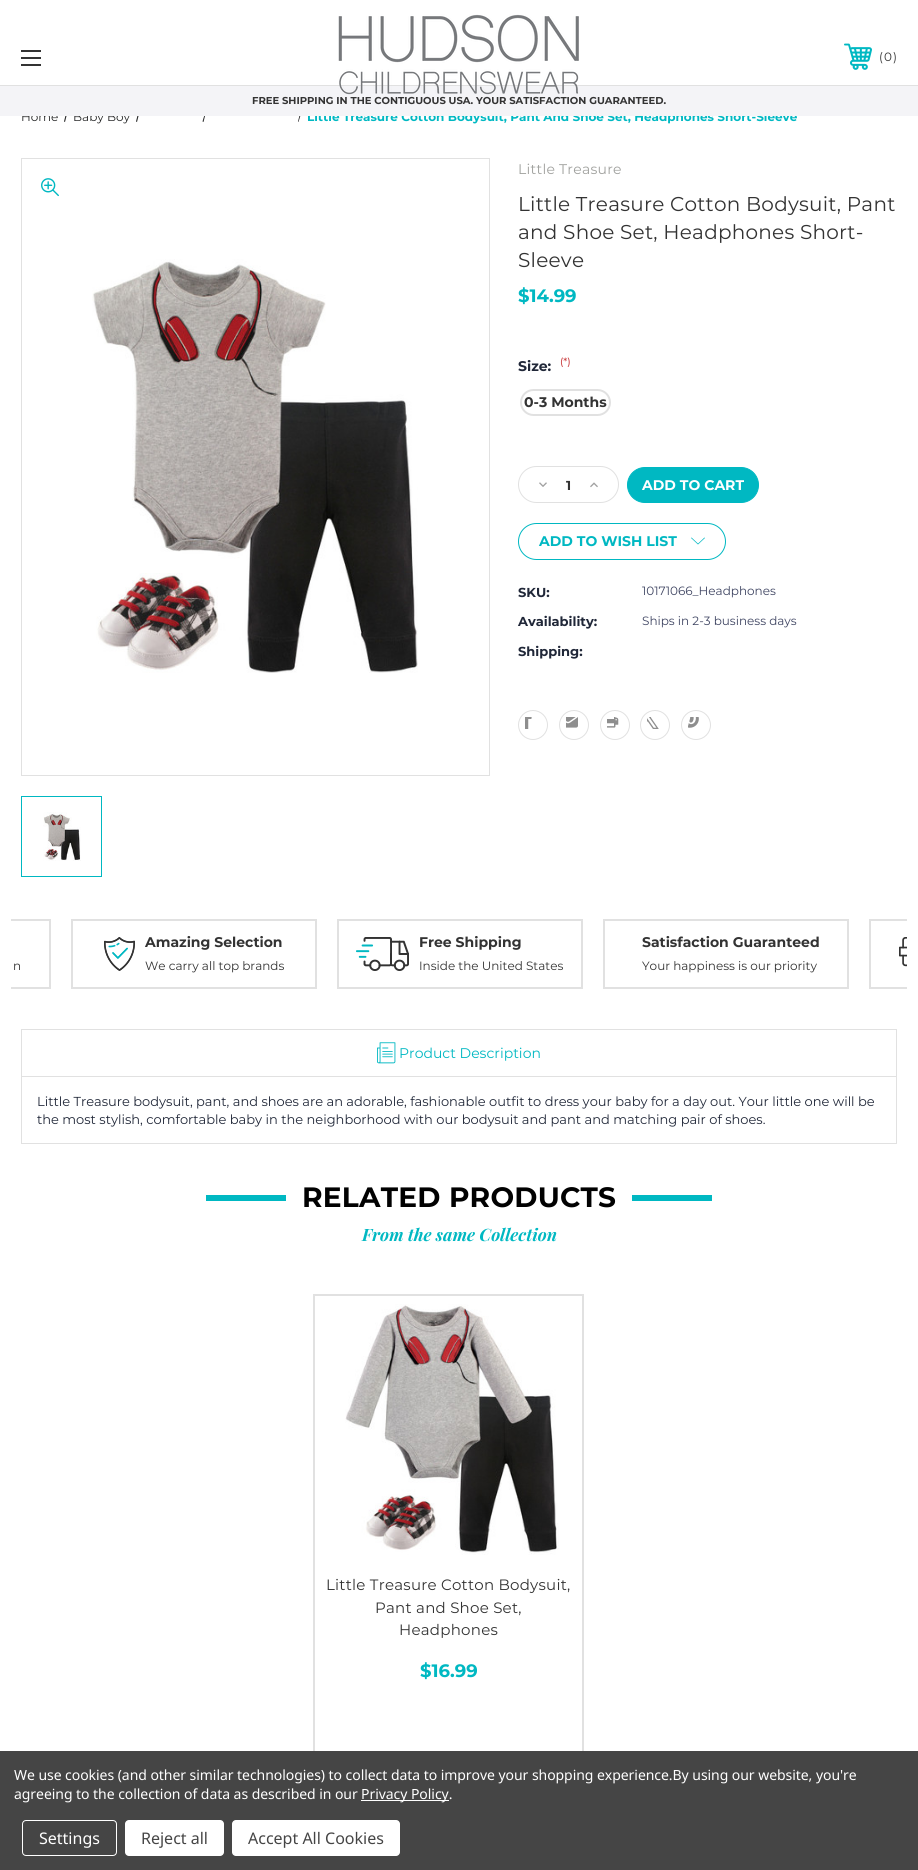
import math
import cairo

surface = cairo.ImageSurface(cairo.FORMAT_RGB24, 918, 1870)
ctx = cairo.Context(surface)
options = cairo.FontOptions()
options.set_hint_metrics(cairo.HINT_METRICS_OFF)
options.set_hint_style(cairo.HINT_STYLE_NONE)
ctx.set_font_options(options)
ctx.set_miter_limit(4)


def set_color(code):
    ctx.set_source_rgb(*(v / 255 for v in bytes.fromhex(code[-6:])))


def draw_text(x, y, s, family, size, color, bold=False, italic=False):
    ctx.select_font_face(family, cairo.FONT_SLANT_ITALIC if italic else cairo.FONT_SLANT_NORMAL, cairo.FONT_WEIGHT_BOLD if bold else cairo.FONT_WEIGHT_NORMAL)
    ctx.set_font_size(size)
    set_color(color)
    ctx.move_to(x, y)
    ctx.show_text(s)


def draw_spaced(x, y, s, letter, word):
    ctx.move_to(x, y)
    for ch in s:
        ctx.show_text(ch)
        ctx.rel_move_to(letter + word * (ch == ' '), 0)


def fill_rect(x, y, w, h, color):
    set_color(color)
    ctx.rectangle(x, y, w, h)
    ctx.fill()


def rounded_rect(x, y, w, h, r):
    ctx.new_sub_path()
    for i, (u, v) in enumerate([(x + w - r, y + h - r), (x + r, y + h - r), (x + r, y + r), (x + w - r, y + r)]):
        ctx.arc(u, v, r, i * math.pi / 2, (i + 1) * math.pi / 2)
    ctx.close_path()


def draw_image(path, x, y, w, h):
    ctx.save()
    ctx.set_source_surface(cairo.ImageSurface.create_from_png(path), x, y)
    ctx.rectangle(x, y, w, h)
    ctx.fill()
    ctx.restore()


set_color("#ffffff")
ctx.paint()
fill_rect(0, 85, 918, 1, "#e1e1e1")
fill_rect(21, 57, 20, 2, "#333333")
fill_rect(21, 50, 20, 2, "#333333")
fill_rect(21, 64, 20, 2, "#333333")
draw_text(21, 121, "Home", "Montserrat", 12, "#242526")
ctx.new_path()
ctx.move_to(66.5, 111.5)
ctx.line_to(67.5, 112)
ctx.line_to(65, 122)
ctx.line_to(64, 121.5)
ctx.close_path()
ctx.fill()
draw_text(73, 121, "Baby Boy", "Montserrat", 12, "#242526")
ctx.new_path()
ctx.move_to(138.5, 111.5)
ctx.line_to(139.5, 112)
ctx.line_to(137, 122)
ctx.line_to(136, 121.5)
ctx.close_path()
ctx.fill()
ctx.new_path()
ctx.move_to(205.5, 111.5)
ctx.line_to(206, 112)
ctx.line_to(203.5, 122)
ctx.line_to(202.5, 121.5)
ctx.close_path()
ctx.fill()
ctx.new_path()
ctx.move_to(300.5, 111.5)
ctx.line_to(301.5, 112)
ctx.line_to(298.5, 122)
ctx.line_to(298, 121.5)
ctx.close_path()
ctx.fill()
draw_text(307, 121, "Little Treasure Cotton Bodysuit, Pant And Shoe Set, Headphones Short-Sleeve", "Montserrat", 12, "#00b8c2", bold=True)
fill_rect(0, 86, 918, 30, "#f4f4f7")
draw_image("assets/img1.png", 338, 14, 241, 81)
draw_image("assets/img2.png", 844, 43, 28, 27)
draw_text(879, 61, "(", "Montserrat", 12, "#333333")
draw_text(884, 61, "0", "Montserrat", 12, "#333333")
draw_text(893, 61, ")", "Montserrat", 12, "#333333")
draw_text(252, 104, "FREE SHIPPING IN THE CONTIGUOUS USA. YOUR SATISFACTION GUARANTEED.", "Montserrat", 10, "#333333", bold=True)
ctx.rectangle(21.5, 158.5, 468, 617)
set_color("#e1e1e1")
ctx.set_line_width(1)
ctx.stroke()
draw_image("assets/img3.png", 92, 259, 326, 414)
draw_image("assets/img4.png", 41, 178, 18, 19)
ctx.rectangle(21.5, 796.5, 80, 80)
set_color("#00b8c2")
ctx.stroke()
draw_image("assets/img5.png", 43, 812, 38, 49)
ctx.select_font_face("Montserrat")
ctx.set_font_size(14)
set_color("#a0a19e")
draw_spaced(518, 174, "Little Treasure", 0.25, 0)
ctx.set_font_size(20)
set_color("#333333")
draw_spaced(518, 211, "Little Treasure Cotton Bodysuit, Pant", 0.25, 0)
draw_spaced(518, 239, "and Shoe Set, Headphones Short-", 0.25, 0)
draw_spaced(518, 267, "Sleeve", 0.25, 0)
draw_text(518, 302, "$14.99", "Montserrat", 18, "#00b8c2", bold=True)
draw_text(518, 371, "Size:", "Montserrat", 14, "#202738", bold=True)
draw_text(560, 365, "(*)", "Montserrat Medium", 10, "#cc4749")
rounded_rect(521, 390, 89, 25, 12.5)
set_color("#e1e1e1")
ctx.set_line_width(2)
ctx.stroke()
draw_text(524, 407, "0-3 Months", "Montserrat", 14, "#333333", bold=True)
rounded_rect(518.5, 466.5, 100, 36, 18)
set_color("#e1e1e1")
ctx.set_line_width(1)
ctx.stroke()
draw_image("assets/img6.png", 539, 482, 8, 5)
draw_text(566, 490, "1", "Montserrat", 13, "#333333", bold=True)
draw_image("assets/img7.png", 590, 482, 8, 6)
set_color("#00b8c2")
rounded_rect(627.5, 467.5, 131, 35, 17.5)
ctx.fill_preserve()
ctx.stroke()
draw_text(642, 490, "ADD TO CART", "Montserrat", 14, "#ffffff", bold=True)
rounded_rect(518.5, 523.5, 207, 36, 18)
set_color("#00b8c2")
ctx.stroke()
draw_text(539, 546, "ADD TO WISH LIST", "Montserrat", 14, "#00b8c2", bold=True)
draw_image("assets/img8.png", 691, 537, 14, 8)
draw_text(518, 597, "SKU:", "Montserrat", 13, "#202738", bold=True)
draw_text(642, 595, "10171066_Headphones", "Montserrat", 12, "#3f4562")
draw_text(518, 626, "Availability:", "Montserrat", 13, "#202738", bold=True)
draw_text(642, 625, "Ships in 2-3 business days", "Montserrat", 12, "#3f4562")
draw_text(518, 656, "Shipping:", "Montserrat", 13, "#202738", bold=True)
ctx.new_path()
ctx.arc(533, 725, 14.5, 0, 2 * math.pi)
set_color("#e1e1e1")
ctx.stroke()
draw_image("assets/img9.png", 525, 717, 7, 12)
ctx.arc(574, 725, 14.5, 0, 2 * math.pi)
ctx.stroke()
draw_image("assets/img10.png", 566, 717, 12, 11)
ctx.arc(615, 725, 14.5, 0, 2 * math.pi)
ctx.stroke()
draw_image("assets/img11.png", 607, 717, 12, 11)
ctx.arc(655, 725, 14.5, 0, 2 * math.pi)
ctx.stroke()
draw_image("assets/img12.png", 647, 717, 12, 12)
ctx.arc(696, 725, 14.5, 0, 2 * math.pi)
ctx.stroke()
draw_image("assets/img13.png", 688, 717, 11, 11)
ctx.save()
ctx.rectangle(11, 919, 896, 70)
ctx.clip()
ctx.rectangle(-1, 920, 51, 68)
ctx.set_line_width(2)
ctx.stroke()
ctx.restore()
draw_text(13, 970, "n", "Montserrat", 12, "#333333")
ctx.rectangle(72, 920, 244, 68)
set_color("#e1e1e1")
ctx.set_line_width(2)
ctx.stroke()
draw_image("assets/img14.png", 104, 937, 31, 34)
draw_text(145, 947, "Amazing Selection", "Montserrat", 14, "#333333", bold=True)
draw_text(145, 970, "We carry all top brands", "Montserrat", 12, "#333333")
ctx.rectangle(338, 920, 244, 68)
set_color("#e1e1e1")
ctx.stroke()
draw_image("assets/img15.png", 356, 937, 53, 34)
draw_text(419, 947, "Free Shipping", "Montserrat", 14, "#333333", bold=True)
draw_text(419, 970, "Inside the United States", "Montserrat", 12, "#333333")
ctx.rectangle(604, 920, 244, 68)
set_color("#e1e1e1")
ctx.stroke()
draw_text(642, 947, "Satisfaction Guaranteed", "Montserrat", 14, "#333333", bold=True)
draw_text(642, 970, "Your happiness is our priority", "Montserrat", 12, "#333333")
ctx.save()
ctx.rectangle(11, 919, 896, 70)
ctx.clip()
ctx.rectangle(870, 920, 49, 68)
set_color("#e1e1e1")
ctx.stroke()
ctx.restore()
draw_image("assets/img16.png", 899, 937, 8, 30)
ctx.rectangle(21.5, 1076.5, 875, 67)
set_color("#e1e1e1")
ctx.set_line_width(1)
ctx.stroke()
ctx.rectangle(21.5, 1029.5, 875, 47)
ctx.stroke()
draw_image("assets/img17.png", 377, 1042, 19, 22)
draw_text(399, 1058, "Product Description", "Montserrat", 14, "#00b8c2")
draw_text(37, 1106, "Little Treasure bodysuit, pant, and shoes are an adorable, fashionable outfit to dress your baby for a day out. Your little one will be", "Montserrat", 13, "#202738")
draw_text(37, 1124, "the most stylish, comfortable baby in the neighborhood with our bodysuit and pant and matching pair of shoes.", "Montserrat", 13, "#202738")
fill_rect(206, 1195, 80, 6, "#00b8c2")
ctx.select_font_face("Montserrat", cairo.FONT_SLANT_NORMAL, cairo.FONT_WEIGHT_BOLD)
ctx.set_font_size(28)
set_color("#010101")
draw_spaced(302, 1207, "RELATED PRODUCTS", 0.25, 0)
fill_rect(632, 1195, 80, 6, "#00b8c2")
draw_text(362, 1241, "From the same Collection", "Playfair Display", 17, "#00b8c2", bold=True, italic=True)
ctx.rectangle(314, 1295, 269, 471)
set_color("#e1e1e1")
ctx.set_line_width(2)
ctx.stroke()
draw_image("assets/img18.png", 345, 1304, 214, 251)
ctx.select_font_face("Montserrat")
ctx.set_font_size(15)
set_color("#333333")
draw_spaced(326, 1590, "Little Treasure Cotton Bodysuit,", 0.25, 0)
draw_spaced(375, 1613, "Pant and Shoe Set,", 0.25, 0)
draw_spaced(399, 1635, "Headphones", 0.25, 0)
draw_text(420, 1677, "$16.99", "Montserrat", 18, "#00b8c2", bold=True)
fill_rect(0, 1751, 918, 119, "#454545")
ctx.select_font_face("Noto Sans")
ctx.set_font_size(14)
set_color("#ffffff")
draw_spaced(14, 1780, "We use cookies (and other similar technologies) to collect data to improve your shopping experience.By using our website, you're", -0.05, 0)
draw_spaced(14, 1799, "agreeing to the collection of data as described in our", -0.05, 0)
fill_rect(361, 1800, 88, 1, "#ffffff")
draw_spaced(361, 1799, "Privacy Policy.", -0.05, 0)
rounded_rect(22.5, 1820.5, 94, 35, 3.5)
ctx.set_line_width(1)
ctx.stroke()
draw_text(39, 1844, "Settings", "Noto Sans", 16, "#ffffff")
rounded_rect(125, 1820, 99, 36, 4)
ctx.fill()
draw_text(141, 1844, "Reject all", "Noto Sans", 16, "#454545")
set_color("#ffffff")
rounded_rect(232, 1820, 168, 36, 4)
ctx.fill()
draw_text(248, 1844, "Accept All Cookies", "Noto Sans", 16, "#454545")
surface.write_to_png("output.png")
